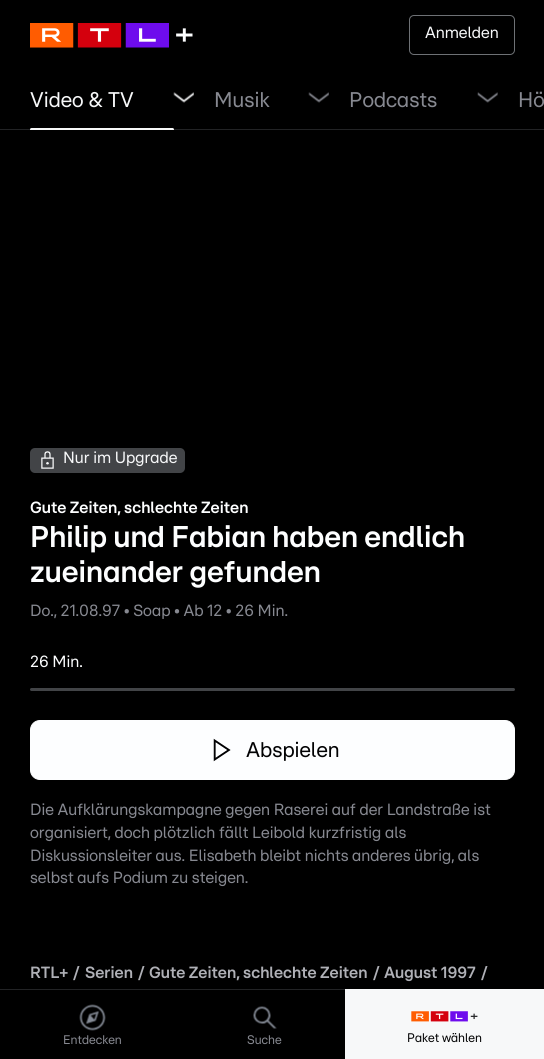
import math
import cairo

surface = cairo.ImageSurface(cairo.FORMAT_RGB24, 544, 1059)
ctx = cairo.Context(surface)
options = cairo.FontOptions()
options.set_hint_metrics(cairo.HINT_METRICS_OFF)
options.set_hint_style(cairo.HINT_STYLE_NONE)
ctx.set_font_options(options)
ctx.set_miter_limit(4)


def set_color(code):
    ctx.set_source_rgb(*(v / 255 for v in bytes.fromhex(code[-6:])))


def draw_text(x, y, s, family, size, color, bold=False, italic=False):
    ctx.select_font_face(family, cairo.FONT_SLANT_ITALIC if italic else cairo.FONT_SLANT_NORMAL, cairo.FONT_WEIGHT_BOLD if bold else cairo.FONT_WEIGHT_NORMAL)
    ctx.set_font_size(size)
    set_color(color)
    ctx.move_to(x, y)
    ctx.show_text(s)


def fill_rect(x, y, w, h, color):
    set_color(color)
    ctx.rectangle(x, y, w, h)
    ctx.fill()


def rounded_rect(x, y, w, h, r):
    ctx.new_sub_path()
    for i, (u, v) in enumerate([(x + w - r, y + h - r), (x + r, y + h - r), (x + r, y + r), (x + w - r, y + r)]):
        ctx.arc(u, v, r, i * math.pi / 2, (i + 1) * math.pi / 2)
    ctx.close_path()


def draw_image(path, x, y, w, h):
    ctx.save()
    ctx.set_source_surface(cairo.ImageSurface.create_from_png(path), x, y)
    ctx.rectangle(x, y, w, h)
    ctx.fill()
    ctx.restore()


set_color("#000000")
ctx.paint()
fill_rect(0, 129, 544, 1, "#222325")
draw_image("assets/img1.png", 30, 23, 163, 25)
rounded_rect(409.5, 15.5, 105, 39, 4.5)
set_color("#6e7175")
ctx.set_line_width(1)
ctx.stroke()
draw_text(425, 38, "Anmelden", "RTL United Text", 16.25, "#f7f8f9")
draw_text(30, 107, "Video & TV", "RTL United Text", 21.25, "#f7f8f9")
ctx.save()
ctx.rectangle(0, 70, 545, 60)
ctx.clip()
rounded_rect(30, 128, 144, 3, 1.5)
ctx.fill()
ctx.restore()
draw_image("assets/img2.png", 173, 92, 21, 11)
draw_text(214, 107, "Musik", "RTL United Text", 21.25, "#878991")
draw_image("assets/img3.png", 308, 92, 21, 11)
draw_text(349, 107, "Podcasts", "RTL United Text", 21.25, "#878991")
draw_image("assets/img4.png", 477, 92, 21, 11)
draw_text(518, 107, "Hö", "RTL United Text", 21.25, "#878991")
set_color("#424447")
rounded_rect(30, 448, 155, 25, 5)
ctx.fill()
draw_image("assets/img5.png", 41, 451, 13, 18)
draw_text(63, 463, "Nur im Upgrade", "RTL United Text", 16.25, "#f7f8f9")
draw_text(30, 513, "Gute Zeiten, schlechte Zeiten", "RTL United Text", 16.25, "#fdfeff", bold=True)
draw_text(30, 547, "Philip und Fabian haben endlich", "RTL United Text", 30, "#fdfeff", bold=True)
draw_text(30, 582, "zueinander gefunden", "RTL United Text", 30, "#fdfeff", bold=True)
draw_text(30, 616, "Do., 21.08.97 • Soap • Ab 12 • 26 Min.", "RTL United Text", 16.25, "#878991")
draw_text(30, 667, "26 Min.", "RTL United Text", 16.25, "#fdfeff")
set_color("#424447")
rounded_rect(30, 688, 485, 3, 1.5)
ctx.fill()
set_color("#fdfeff")
rounded_rect(30.5, 720.5, 484, 59, 9.5)
ctx.fill_preserve()
ctx.stroke()
draw_image("assets/img6.png", 213, 738, 18, 24)
draw_text(246, 757, "Abspielen", "RTL United Text", 21.25, "#020203")
draw_text(30, 815, "Die Aufklärungskampagne gegen Raserei auf der Landstraße ist", "RTL United Text", 16.25, "#878991")
draw_text(30, 838, "organisiert, doch plötzlich fällt Leibold kurzfristig als", "RTL United Text", 16.25, "#878991")
draw_text(30, 861, "Diskussionsleiter aus. Elisabeth bleibt nichts anderes übrig, als", "RTL United Text", 16.25, "#878991")
draw_text(30, 883, "selbst aufs Podium zu steigen.", "RTL United Text", 16.25, "#878991")
draw_text(30, 978, "RTL+", "RTL United Text", 16.25, "#afb0b6", bold=True)
draw_text(73, 978, "/", "RTL United Text", 16.25, "#afb0b6", bold=True)
draw_text(85, 978, "Serien", "RTL United Text", 16.25, "#afb0b6", bold=True)
draw_text(138, 978, "/", "RTL United Text", 16.25, "#afb0b6", bold=True)
draw_text(149, 978, "Gute Zeiten, schlechte Zeiten", "RTL United Text", 16.25, "#afb0b6", bold=True)
draw_text(373, 978, "/", "RTL United Text", 16.25, "#afb0b6", bold=True)
draw_text(384, 978, "August 1997", "RTL United Text", 16.25, "#afb0b6", bold=True)
draw_text(481, 978, "/", "RTL United Text", 16.25, "#afb0b6", bold=True)
fill_rect(0, 989, 345, 1, "#222325")
draw_image("assets/img7.png", 79, 1004, 27, 27)
draw_text(63, 1044, "Entdecken", "RTL United Text", 12.5, "#878991")
draw_image("assets/img8.png", 253, 1006, 24, 23)
draw_text(247, 1044, "Suche", "RTL United Text", 12.5, "#878991")
fill_rect(345, 989, 199, 70, "#f7f8f9")
draw_image("assets/img9.png", 411, 1011, 67, 11)
draw_text(407, 1042, "Paket wählen", "RTL United Text", 12.5, "#020203")
surface.write_to_png("output.png")
